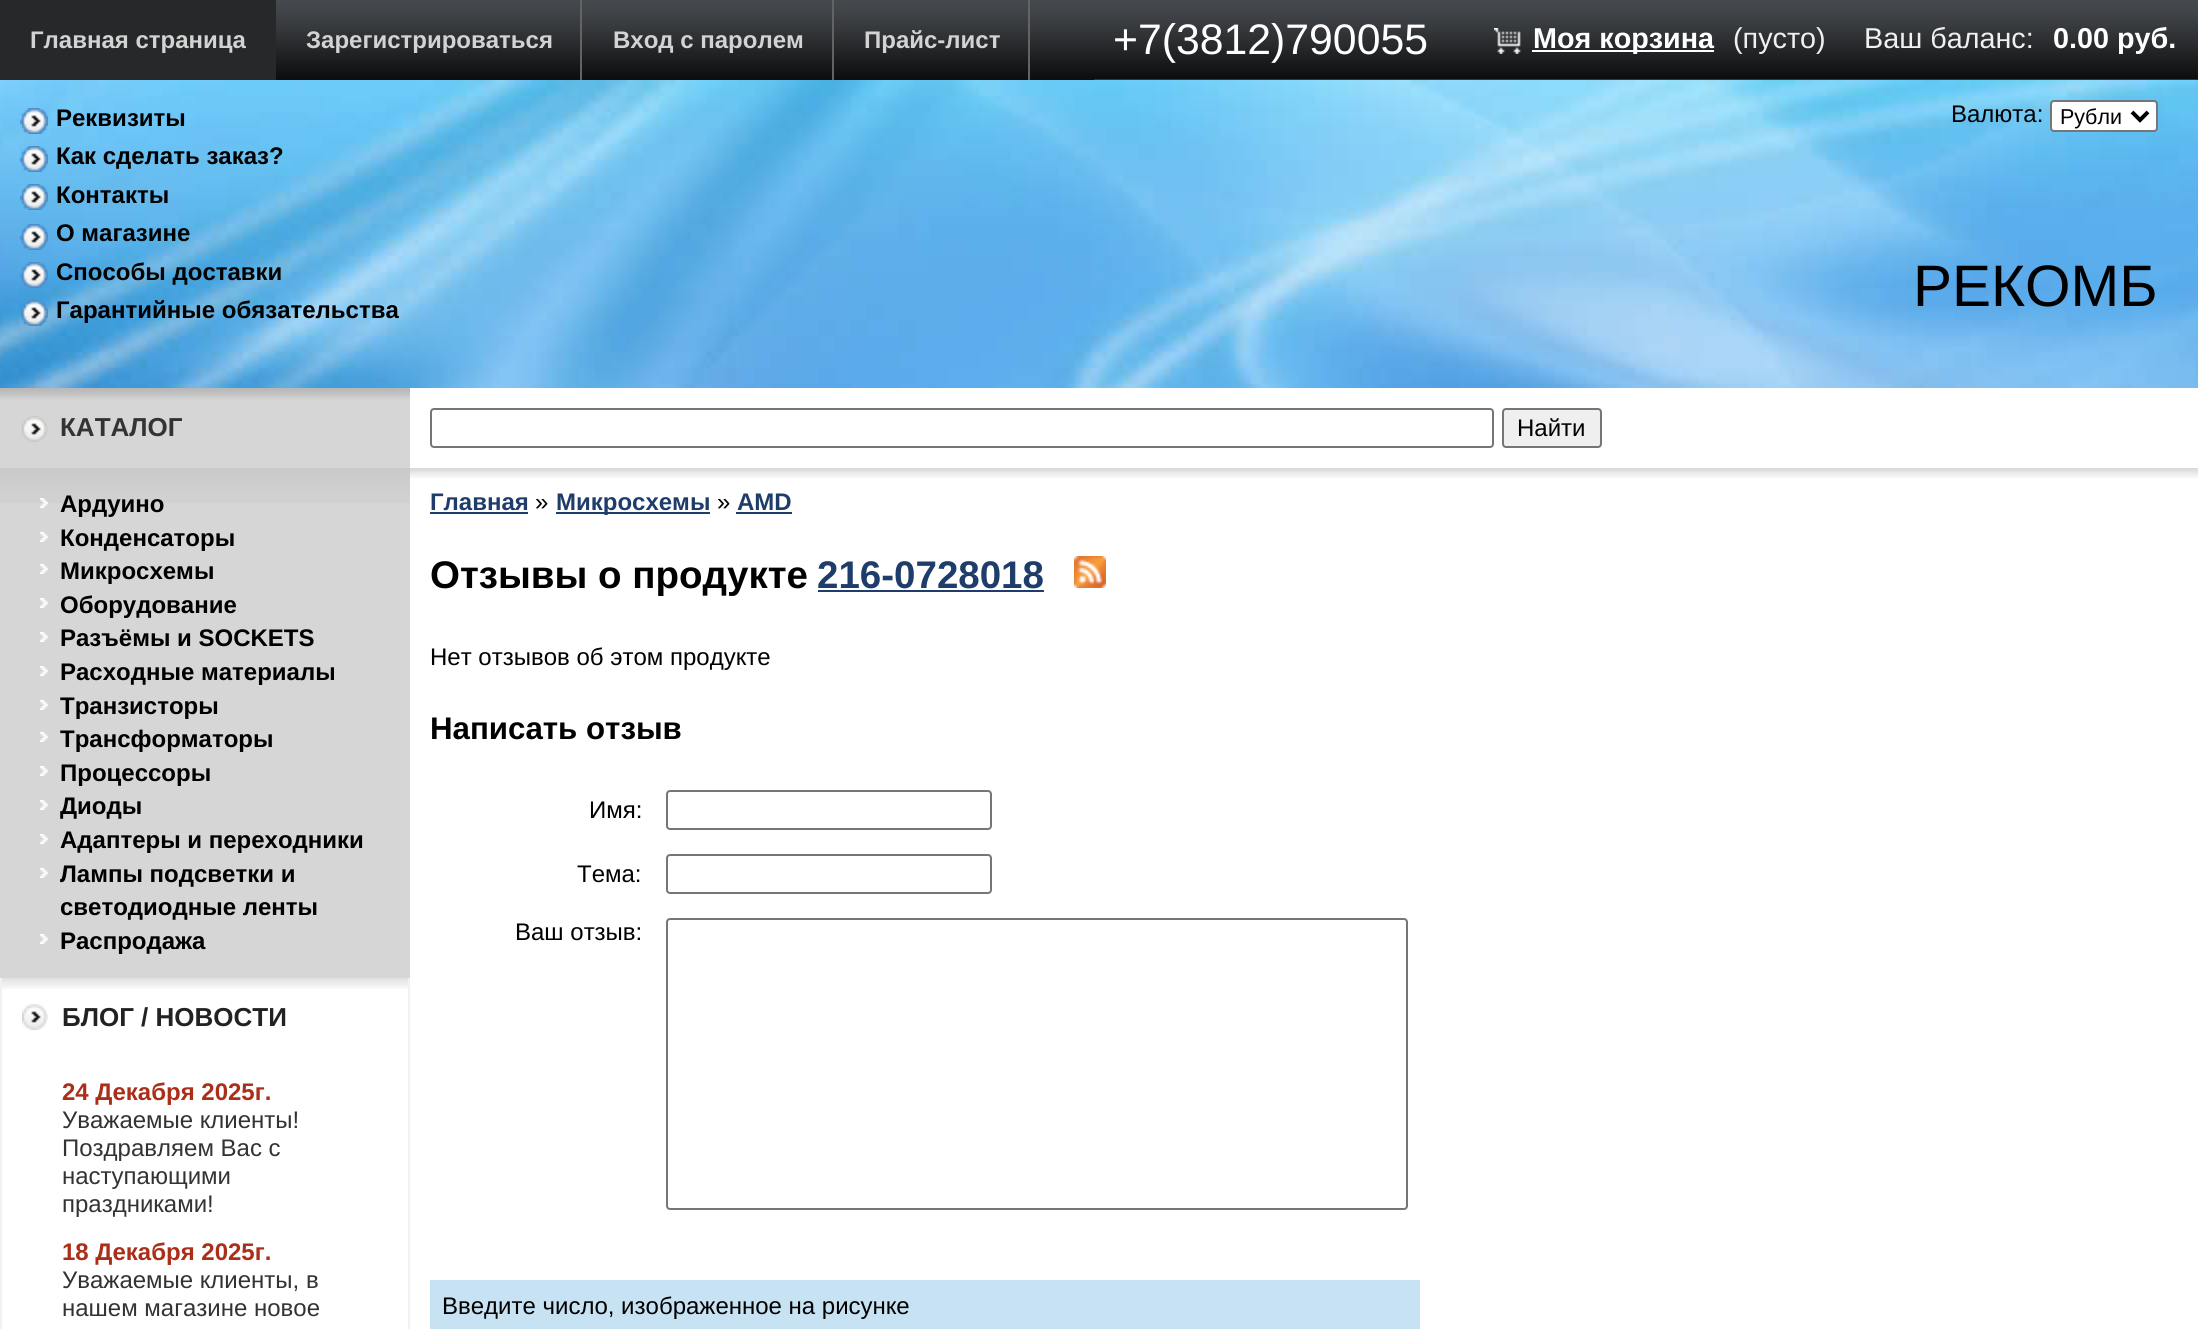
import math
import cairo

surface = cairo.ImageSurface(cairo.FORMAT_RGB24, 2198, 1329)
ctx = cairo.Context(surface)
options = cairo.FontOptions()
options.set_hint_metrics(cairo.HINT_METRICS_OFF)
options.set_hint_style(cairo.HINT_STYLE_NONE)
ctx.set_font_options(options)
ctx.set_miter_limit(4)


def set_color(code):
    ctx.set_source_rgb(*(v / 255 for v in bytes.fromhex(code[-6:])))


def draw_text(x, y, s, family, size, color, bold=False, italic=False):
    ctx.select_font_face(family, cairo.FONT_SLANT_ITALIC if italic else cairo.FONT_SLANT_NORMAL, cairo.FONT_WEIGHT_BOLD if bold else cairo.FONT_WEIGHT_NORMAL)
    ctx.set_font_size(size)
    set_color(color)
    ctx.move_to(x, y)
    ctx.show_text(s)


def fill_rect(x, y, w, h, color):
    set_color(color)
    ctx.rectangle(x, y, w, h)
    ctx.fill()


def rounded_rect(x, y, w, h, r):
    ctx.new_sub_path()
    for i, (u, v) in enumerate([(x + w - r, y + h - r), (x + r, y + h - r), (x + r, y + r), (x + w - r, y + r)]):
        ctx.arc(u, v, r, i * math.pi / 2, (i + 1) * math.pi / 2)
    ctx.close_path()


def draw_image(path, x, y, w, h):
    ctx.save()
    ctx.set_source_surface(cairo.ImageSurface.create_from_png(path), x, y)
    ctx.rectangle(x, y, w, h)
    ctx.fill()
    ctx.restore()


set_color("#ffffff")
ctx.paint()
draw_image("assets/img1.png", 276, 0, 1922, 80)
fill_rect(276, 79, 818, 1, "#0c0d0d")
fill_rect(0, 0, 276, 80, "#26282a")
draw_text(30, 48, "Главная страница", "Liberation Sans", 24, "#d3d3d3", bold=True)
fill_rect(580, 0, 2, 80, "#636363")
draw_text(306, 48, "Зарегистрироваться", "Liberation Sans", 24, "#d3d3d3", bold=True)
fill_rect(832, 0, 2, 80, "#636363")
draw_text(613, 48, "Вход с паролем", "Liberation Sans", 24, "#d3d3d3", bold=True)
fill_rect(1028, 0, 2, 80, "#636363")
draw_text(864, 48, "Прайс-лист", "Liberation Sans", 24, "#d3d3d3", bold=True)
draw_text(1113, 54, "+7(3812)790055", "Liberation Sans", 42.75, "#ffffff")
draw_image("assets/img2.png", 1494, 28, 27, 26)
fill_rect(1532, 50, 182, 2, "#ffffff")
draw_text(1533, 48, "Моя корзина", "Liberation Sans", 28.75, "#ffffff", bold=True)
draw_text(1733, 48, "(пусто)", "Liberation Sans", 28.75, "#f0f0f0")
draw_text(1864, 48, "Ваш баланс:", "Liberation Sans", 28.75, "#f0f0f0")
draw_text(2053, 48, "0.00 руб.", "Liberation Sans", 28.75, "#ffffff", bold=True)
draw_image("assets/img3.png", 0, 80, 2198, 308)
draw_image("assets/img4.png", 20, 108, 28, 26)
draw_text(56, 126, "Реквизиты", "Liberation Sans", 24, "#000000", bold=True)
draw_image("assets/img5.png", 20, 146, 28, 26)
draw_text(56, 164, "Как сделать заказ?", "Liberation Sans", 24, "#000000", bold=True)
draw_image("assets/img6.png", 20, 184, 28, 26)
draw_text(56, 203, "Контакты", "Liberation Sans", 24, "#000000", bold=True)
draw_image("assets/img7.png", 20, 224, 28, 26)
draw_text(56, 241, "О магазине", "Liberation Sans", 24, "#000000", bold=True)
draw_image("assets/img8.png", 20, 262, 28, 26)
draw_text(56, 280, "Способы доставки", "Liberation Sans", 24, "#000000", bold=True)
draw_image("assets/img9.png", 20, 300, 28, 26)
draw_text(56, 318, "Гарантийные обязательства", "Liberation Sans", 24, "#000000", bold=True)
draw_text(1951, 122, "Валюта:", "Liberation Sans", 24, "#000000")
set_color("#ffffff")
rounded_rect(2051, 101, 106, 30, 3)
ctx.fill_preserve()
set_color("#767676")
ctx.stroke()
ctx.new_path()
ctx.move_to(2132, 112)
ctx.line_to(2140, 120)
ctx.line_to(2148, 112)
set_color("#000000")
ctx.set_line_width(4)
ctx.stroke()
draw_text(2060, 124, "Рубли", "Liberation Sans", 21.5, "#000000")
draw_text(1913, 306, "РЕКОМБ", "Liberation Sans", 58.5, "#000000")
draw_image("assets/img10.png", 0, 388, 410, 80)
draw_image("assets/img11.png", 20, 416, 28, 26)
draw_text(60, 436, "КАТАЛОГ", "Liberation Sans", 26, "#333333", bold=True)
fill_rect(0, 503, 410, 475, "#d6d6d6")
draw_image("assets/img12.png", 0, 468, 410, 35)
draw_image("assets/img13.png", 40, 498, 8, 10)
draw_text(60, 512, "Ардуино", "Liberation Sans", 24, "#000000", bold=True)
draw_image("assets/img14.png", 40, 532, 8, 10)
draw_text(60, 546, "Конденсаторы", "Liberation Sans", 24, "#000000", bold=True)
draw_image("assets/img14.png", 40, 564, 8, 10)
draw_text(60, 579, "Микросхемы", "Liberation Sans", 24, "#000000", bold=True)
draw_image("assets/img14.png", 40, 598, 8, 10)
draw_text(60, 613, "Оборудование", "Liberation Sans", 24, "#000000", bold=True)
draw_image("assets/img14.png", 40, 632, 8, 10)
draw_text(60, 646, "Разъёмы и SOCKETS", "Liberation Sans", 24, "#000000", bold=True)
draw_image("assets/img14.png", 40, 666, 8, 10)
draw_text(60, 680, "Расходные материалы", "Liberation Sans", 24, "#000000", bold=True)
draw_image("assets/img14.png", 40, 700, 8, 10)
draw_text(60, 714, "Транзисторы", "Liberation Sans", 24, "#000000", bold=True)
draw_image("assets/img14.png", 40, 732, 8, 10)
draw_text(60, 747, "Трансформаторы", "Liberation Sans", 24, "#000000", bold=True)
draw_image("assets/img14.png", 40, 766, 8, 10)
draw_text(60, 781, "Процессоры", "Liberation Sans", 24, "#000000", bold=True)
draw_image("assets/img14.png", 40, 800, 8, 10)
draw_text(60, 814, "Диоды", "Liberation Sans", 24, "#000000", bold=True)
draw_image("assets/img14.png", 40, 834, 8, 10)
draw_text(60, 848, "Адаптеры и переходники", "Liberation Sans", 24, "#000000", bold=True)
draw_image("assets/img14.png", 40, 868, 8, 10)
draw_text(60, 882, "Лампы подсветки и", "Liberation Sans", 24, "#000000", bold=True)
draw_text(60, 915, "светодиодные ленты", "Liberation Sans", 24, "#000000", bold=True)
draw_image("assets/img14.png", 40, 934, 8, 10)
draw_text(60, 949, "Распродажа", "Liberation Sans", 24, "#000000", bold=True)
draw_image("assets/img15.png", 2, 978, 406, 11)
fill_rect(408, 978, 2, 351, "#f2f2f2")
fill_rect(0, 978, 2, 351, "#f2f2f2")
draw_image("assets/img16.png", 22, 1004, 26, 26)
draw_text(62, 1026, "БЛОГ / НОВОСТИ", "Liberation Sans", 26, "#222222", bold=True)
draw_text(62, 1100, "24 Декабря 2025г.", "Liberation Sans", 24, "#ab2e19", bold=True)
draw_text(62, 1128, "Уважаемые клиенты!", "Liberation Sans", 24, "#333333")
draw_text(62, 1156, "Поздравляем Вас с", "Liberation Sans", 24, "#333333")
draw_text(62, 1184, "наступающими", "Liberation Sans", 24, "#333333")
draw_text(62, 1212, "праздниками!", "Liberation Sans", 24, "#333333")
draw_text(62, 1260, "18 Декабря 2025г.", "Liberation Sans", 24, "#ab2e19", bold=True)
draw_text(62, 1288, "Уважаемые клиенты, в", "Liberation Sans", 24, "#333333")
draw_text(62, 1316, "нашем магазине новое", "Liberation Sans", 24, "#333333")
rounded_rect(431, 409, 1062, 38, 3)
set_color("#767676")
ctx.set_line_width(2)
ctx.stroke()
set_color("#efefef")
rounded_rect(1503, 409, 98, 38, 3)
ctx.fill_preserve()
set_color("#767676")
ctx.stroke()
draw_text(1517, 436, "Найти", "Liberation Sans", 24, "#000000")
draw_image("assets/img17.png", 410, 468, 1788, 10)
draw_text(430, 510, "Главная", "Liberation Sans", 24, "#1f3d6a", bold=True)
fill_rect(430, 512, 98, 2, "#1f3d6a")
draw_text(535, 510, "»", "Liberation Sans", 24, "#000000")
fill_rect(556, 512, 154, 2, "#1f3d6a")
draw_text(556, 510, "Микросхемы", "Liberation Sans", 24, "#1f3d6a", bold=True)
draw_text(717, 510, "»", "Liberation Sans", 24, "#000000")
draw_text(737, 510, "AMD", "Liberation Sans", 24, "#1f3d6a", bold=True)
fill_rect(736, 512, 56, 2, "#1f3d6a")
draw_text(430, 588, "Отзывы о продукте", "Liberation Sans", 38.5, "#000000", bold=True)
draw_text(817, 588, "216-0728018", "Liberation Sans", 38.5, "#1f3d6a", bold=True)
fill_rect(818, 590, 226, 2, "#1f3d6a")
draw_image("assets/img18.png", 1074, 556, 32, 32)
draw_text(430, 665, "Нет отзывов об этом продукте", "Liberation Sans", 24, "#000000")
draw_text(430, 739, "Написать отзыв", "Liberation Sans", 31.25, "#000000", bold=True)
draw_text(589, 818, "Имя:", "Liberation Sans", 24, "#000000")
rounded_rect(667, 791, 324, 38, 3)
set_color("#767676")
ctx.stroke()
draw_text(577, 882, "Тема:", "Liberation Sans", 24, "#000000")
rounded_rect(667, 855, 324, 38, 3)
set_color("#767676")
ctx.stroke()
draw_text(515, 940, "Ваш отзыв:", "Liberation Sans", 24, "#000000")
rounded_rect(667, 919, 740, 290, 3)
set_color("#767676")
ctx.stroke()
fill_rect(430, 1280, 990, 49, "#c7e2f2")
draw_text(442, 1314, "Введите число, изображенное на рисунке", "Liberation Sans", 24, "#000000")
surface.write_to_png("output.png")
